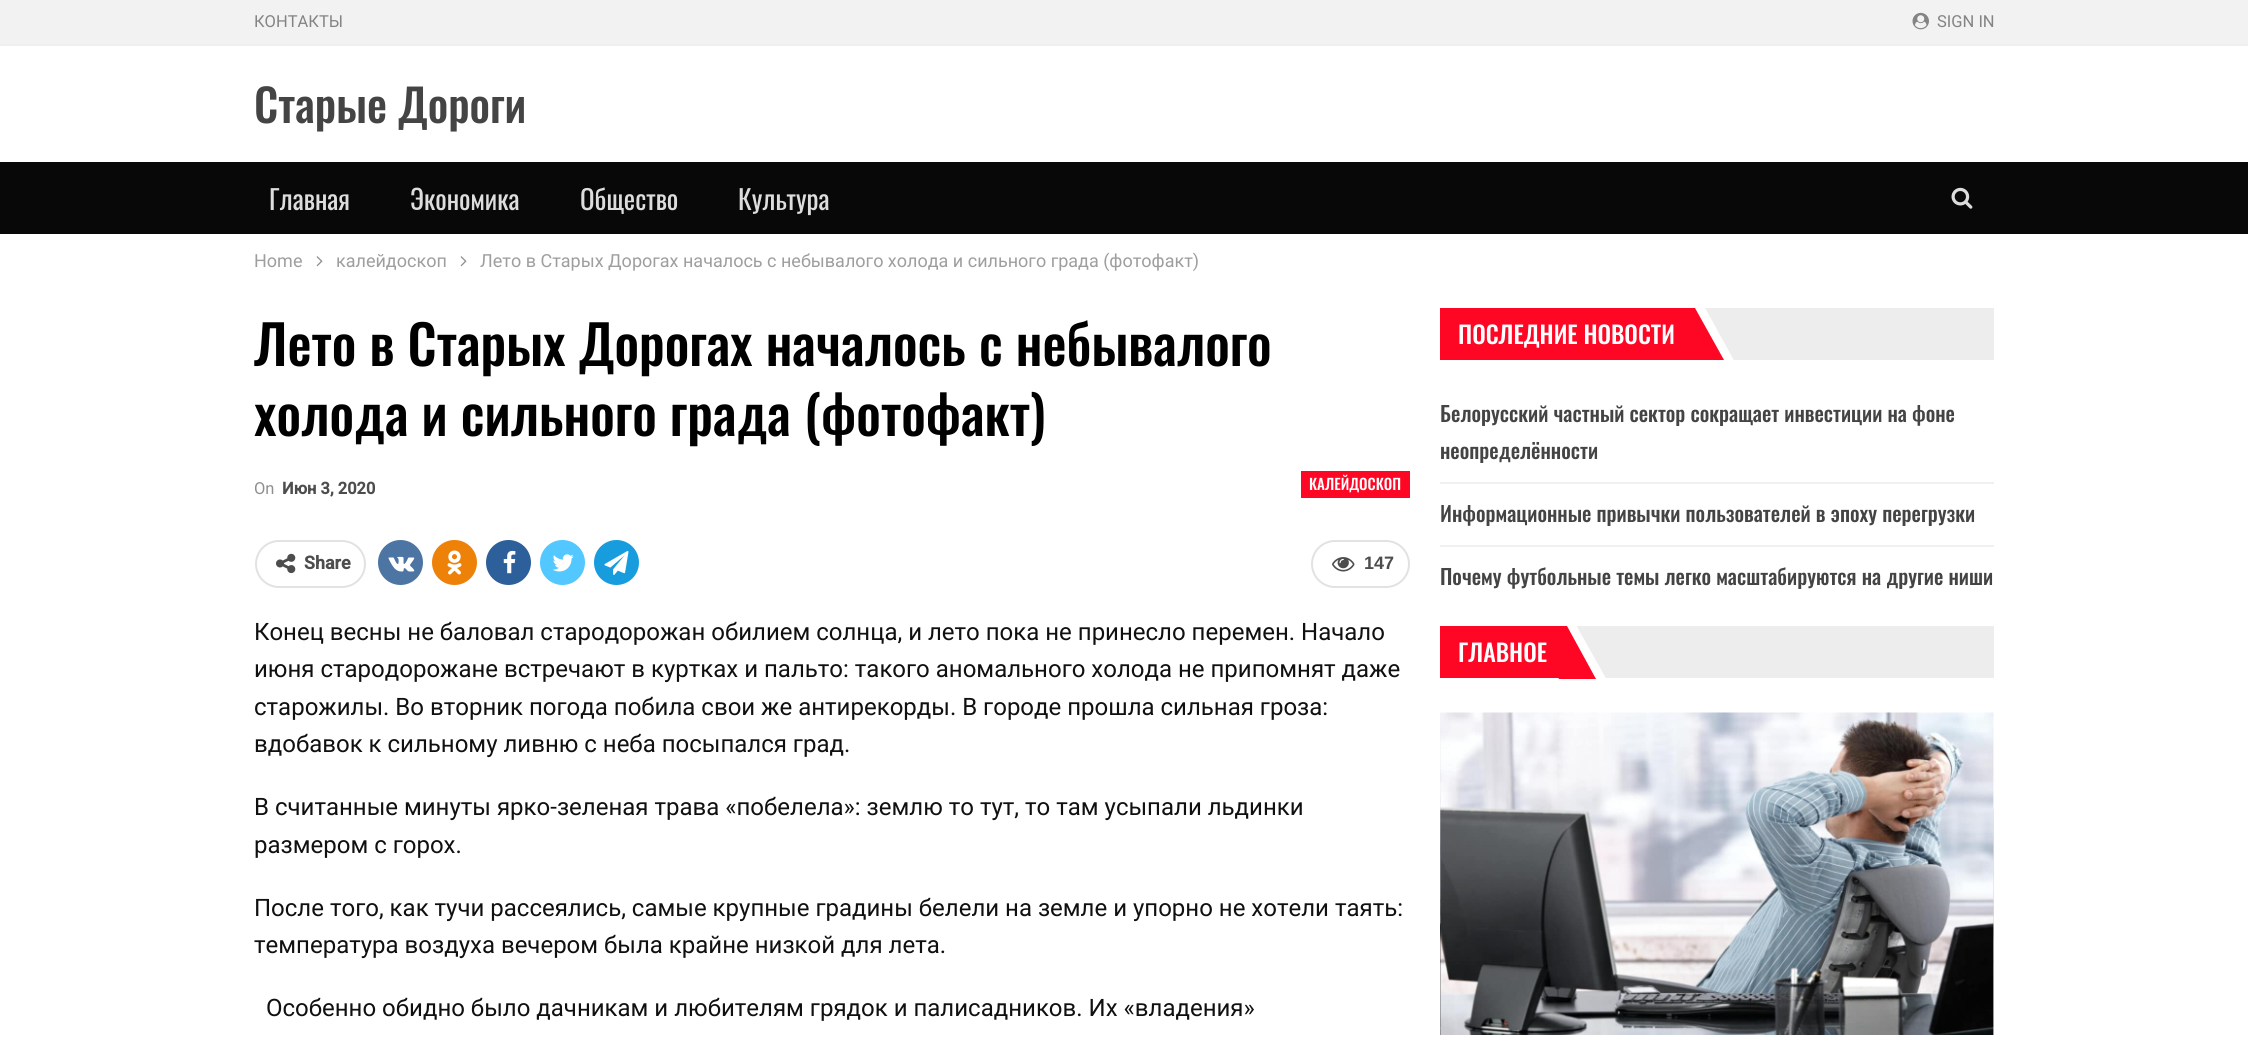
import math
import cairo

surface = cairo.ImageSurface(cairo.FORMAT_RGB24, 2248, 1045)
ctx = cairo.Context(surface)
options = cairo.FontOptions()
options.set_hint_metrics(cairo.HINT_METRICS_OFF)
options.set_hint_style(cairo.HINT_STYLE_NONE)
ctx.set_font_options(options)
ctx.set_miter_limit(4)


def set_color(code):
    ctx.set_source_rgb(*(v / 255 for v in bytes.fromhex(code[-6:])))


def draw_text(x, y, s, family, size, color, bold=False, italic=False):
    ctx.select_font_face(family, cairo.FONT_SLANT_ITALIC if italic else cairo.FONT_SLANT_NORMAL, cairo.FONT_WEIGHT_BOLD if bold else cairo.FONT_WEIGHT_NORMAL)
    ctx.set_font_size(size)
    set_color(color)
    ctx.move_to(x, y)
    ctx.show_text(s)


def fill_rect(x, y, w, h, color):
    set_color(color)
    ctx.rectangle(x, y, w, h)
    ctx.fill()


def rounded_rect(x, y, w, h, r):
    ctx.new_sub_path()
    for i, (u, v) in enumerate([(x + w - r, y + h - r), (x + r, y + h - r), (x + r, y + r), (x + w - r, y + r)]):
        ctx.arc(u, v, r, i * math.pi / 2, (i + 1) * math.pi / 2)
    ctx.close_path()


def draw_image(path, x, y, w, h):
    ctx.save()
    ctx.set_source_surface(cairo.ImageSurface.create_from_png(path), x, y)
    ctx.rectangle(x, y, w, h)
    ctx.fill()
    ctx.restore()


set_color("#ffffff")
ctx.paint()
fill_rect(0, 0, 2248, 44, "#f2f2f2")
fill_rect(0, 44, 2248, 2, "#efefef")
draw_text(254, 27, "КОНТАКТЫ", "Roboto", 16.5, "#848484")
draw_image("assets/img1.png", 1912, 12, 17, 18)
draw_text(1937, 27, "SIGN IN", "Roboto", 16.5, "#848484")
draw_text(254, 123, "Старые Дороги", "Oswald Medium", 45, "#444444")
fill_rect(0, 162, 2248, 72, "#080808")
draw_text(269, 210, "Главная", "Oswald", 27, "#dddddd")
draw_text(410, 210, "Экономика", "Oswald", 27, "#dddddd")
draw_text(580, 210, "Общество", "Oswald", 27, "#dddddd")
draw_text(738, 210, "Культура", "Oswald", 27, "#dddddd")
draw_image("assets/img2.png", 1951, 187, 22, 22)
draw_text(254, 267, "Home", "Roboto", 18, "#9e9e9e")
draw_image("assets/img3.png", 316, 256, 7, 11)
draw_text(336, 267, "калейдоскоп", "Roboto", 18, "#9e9e9e")
draw_image("assets/img3.png", 460, 256, 7, 11)
draw_text(480, 267, "Лето в Старых Дорогах началось с небывалого холода и сильного града (фотофакт)", "Roboto", 18, "#9e9e9e")
draw_text(254, 366, "Лето в Старых Дорогах началось с небывалого", "Oswald Medium", 54, "#000000")
draw_text(254, 436, "холода и сильного града (фотофакт)", "Oswald Medium", 54, "#000000")
draw_text(254, 494, "On", "Roboto", 16.5, "#8f8f8f")
draw_text(282, 494, "Июн 3, 2020", "Roboto", 16.5, "#4d4d4d", bold=True)
fill_rect(1301, 471, 109, 27, "#fe0724")
draw_text(1309, 490, "КАЛЕЙДОСКОП", "Oswald Medium", 15, "#ffffff")
rounded_rect(256, 541, 109, 46, 23)
set_color("#e2e2e2")
ctx.stroke()
draw_image("assets/img4.png", 276, 553, 20, 21)
draw_text(304, 569, "Share", "Roboto", 18, "#4d4d4d", bold=True)
set_color("#4c75a3")
ctx.new_path()
ctx.arc(400.5, 562.5, 22.5, 0, 2 * math.pi)
ctx.fill()
draw_image("assets/img5.png", 388, 556, 27, 16)
set_color("#ee8208")
ctx.arc(454.5, 562.5, 22.5, 0, 2 * math.pi)
ctx.fill()
draw_image("assets/img6.png", 447, 550, 15, 25)
set_color("#2d5f9a")
ctx.arc(508.5, 562.5, 22.5, 0, 2 * math.pi)
ctx.fill()
draw_image("assets/img7.png", 503, 550, 13, 24)
set_color("#53c7ff")
ctx.arc(562.5, 562.5, 22.5, 0, 2 * math.pi)
ctx.fill()
draw_image("assets/img8.png", 552, 554, 22, 18)
set_color("#179cde")
ctx.arc(616.5, 562.5, 22.5, 0, 2 * math.pi)
ctx.fill()
draw_image("assets/img9.png", 604, 551, 25, 24)
rounded_rect(1312, 541, 97, 46, 23)
set_color("#e2e2e2")
ctx.stroke()
draw_image("assets/img10.png", 1332, 557, 23, 15)
draw_text(1364, 569, "147", "Liberation Sans", 18, "#4d4d4d", bold=True)
draw_text(254, 640, "Конец весны не баловал стародорожан обилием солнца, и лето пока не принесло перемен. Начало", "Roboto", 24, "#101010")
draw_text(254, 677, "июня стародорожане встречают в куртках и пальто: такого аномального холода не припомнят даже", "Roboto", 24, "#101010")
draw_text(254, 715, "старожилы. Во вторник погода побила свои же антирекорды. В городе прошла сильная гроза:", "Roboto", 24, "#101010")
draw_text(254, 752, "вдобавок к сильному ливню с неба посыпался град.", "Roboto", 24, "#101010")
draw_text(254, 815, "В считанные минуты ярко-зеленая трава «побелела»: землю то тут, то там усыпали льдинки", "Roboto", 24, "#101010")
draw_text(254, 853, "размером с горох.", "Roboto", 24, "#101010")
draw_text(254, 916, "После того, как тучи рассеялись, самые крупные градины белели на земле и упорно не хотели таять:", "Roboto", 24, "#101010")
draw_text(254, 953, "температура воздуха вечером была крайне низкой для лета.", "Roboto", 24, "#101010")
draw_text(266, 1016, "Особенно обидно было дачникам и любителям грядок и палисадников. Их «владения»", "Roboto", 24, "#101010")
fill_rect(1440, 308, 246, 52, "#fe0724")
fill_rect(1705, 308, 289, 52, "#ededed")
set_color("#ffffff")
ctx.new_path()
ctx.move_to(1674, 306)
ctx.line_to(1704, 306)
ctx.line_to(1736, 364)
ctx.line_to(1706, 364)
ctx.close_path()
ctx.fill()
set_color("#fe0724")
ctx.new_path()
ctx.move_to(1657, 308)
ctx.line_to(1695, 308)
ctx.line_to(1724, 360)
ctx.line_to(1686, 360)
ctx.close_path()
ctx.fill()
draw_text(1458, 344, "ПОСЛЕДНИЕ НОВОСТИ", "Oswald Medium", 24, "#ffffff")
fill_rect(1440, 482, 554, 2, "#f0f0f0")
draw_text(1440, 422, "Белорусский частный сектор сокращает инвестиции на фоне", "Oswald Medium", 21, "#444444")
draw_text(1440, 459, "неопределённости", "Oswald Medium", 21, "#444444")
fill_rect(1440, 545, 554, 2, "#f0f0f0")
draw_text(1440, 522, "Информационные привычки пользователей в эпоху перегрузки", "Oswald Medium", 21, "#444444")
draw_text(1440, 585, "Почему футбольные темы легко масштабируются на другие ниши", "Oswald Medium", 21, "#444444")
fill_rect(1440, 626, 119, 52, "#fe0724")
fill_rect(1576, 626, 418, 52, "#ededed")
set_color("#ffffff")
ctx.new_path()
ctx.move_to(1546, 625)
ctx.line_to(1576, 625)
ctx.line_to(1608, 682)
ctx.line_to(1578, 682)
ctx.close_path()
ctx.fill()
set_color("#fe0724")
ctx.new_path()
ctx.move_to(1530, 626)
ctx.line_to(1567, 626)
ctx.line_to(1596, 679)
ctx.line_to(1559, 679)
ctx.close_path()
ctx.fill()
draw_text(1458, 662, "ГЛАВНОЕ", "Oswald Medium", 24, "#ffffff")
draw_image("assets/img11.png", 1440, 712, 554, 323)
surface.write_to_png("output.png")
